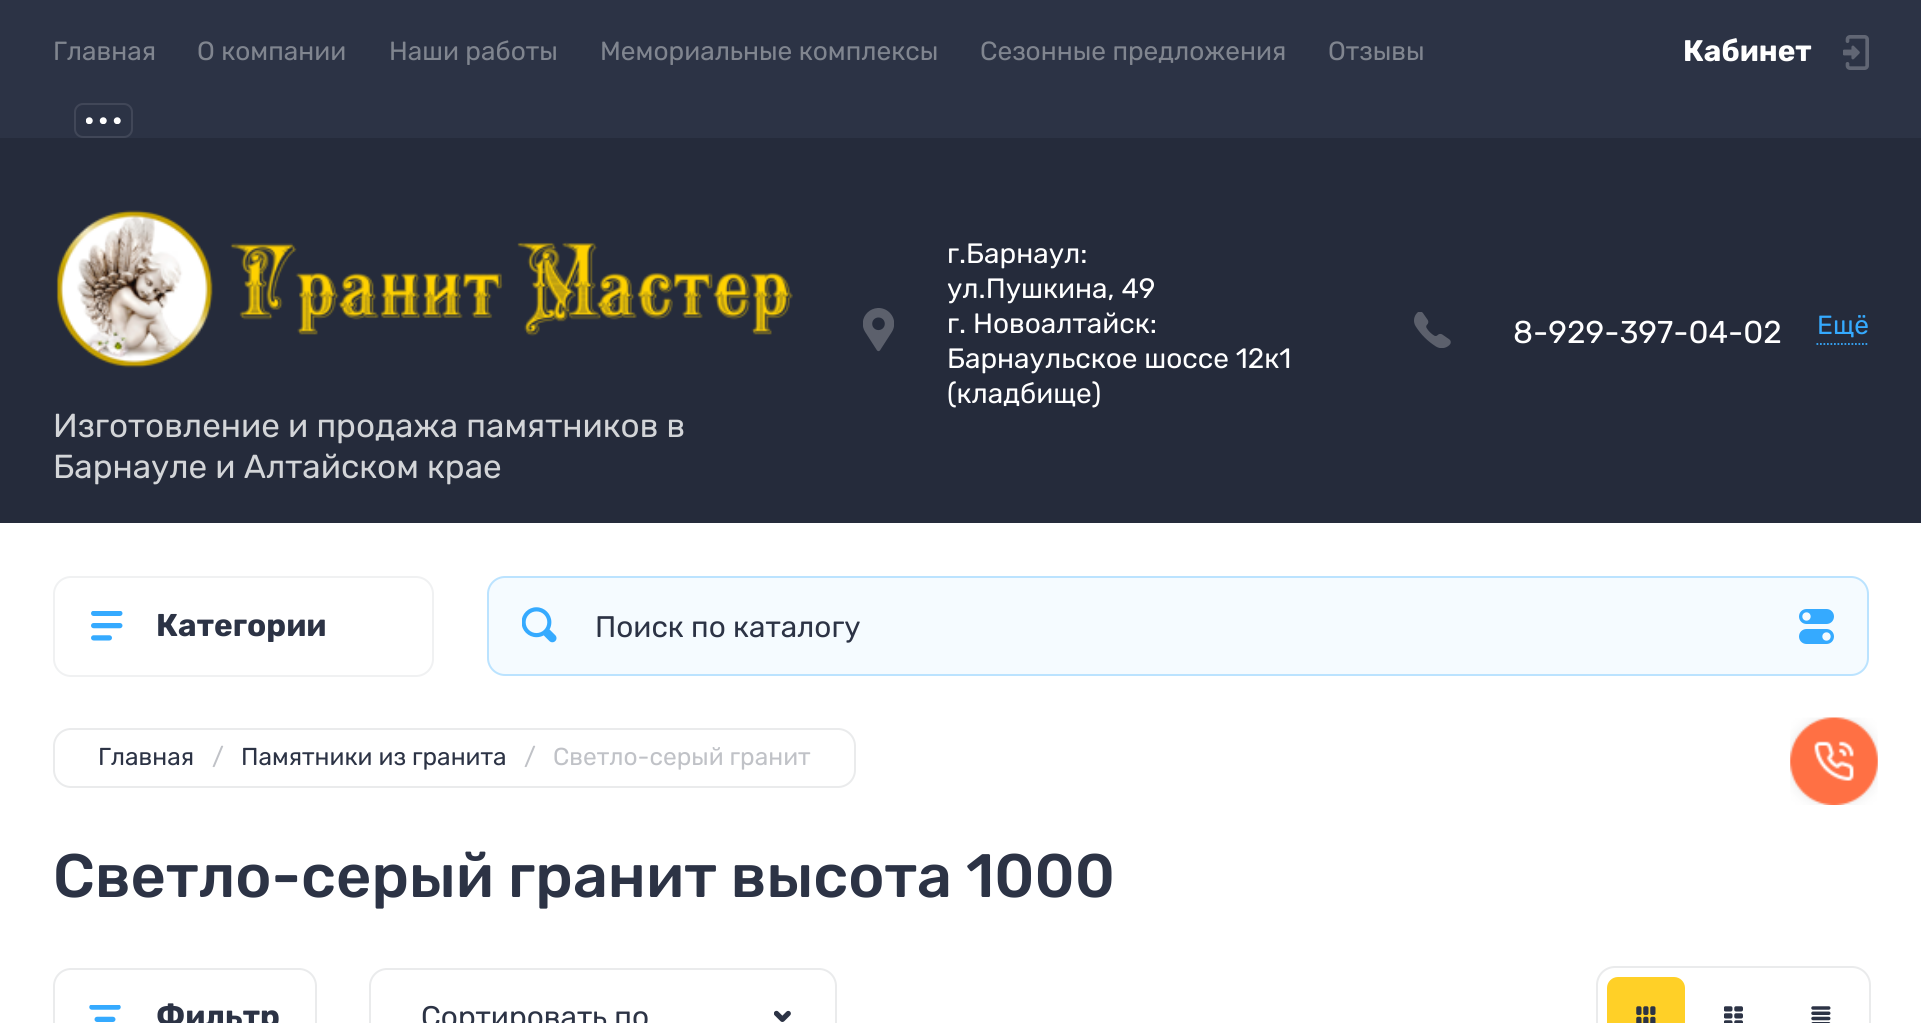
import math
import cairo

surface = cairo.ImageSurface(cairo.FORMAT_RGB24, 1921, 1023)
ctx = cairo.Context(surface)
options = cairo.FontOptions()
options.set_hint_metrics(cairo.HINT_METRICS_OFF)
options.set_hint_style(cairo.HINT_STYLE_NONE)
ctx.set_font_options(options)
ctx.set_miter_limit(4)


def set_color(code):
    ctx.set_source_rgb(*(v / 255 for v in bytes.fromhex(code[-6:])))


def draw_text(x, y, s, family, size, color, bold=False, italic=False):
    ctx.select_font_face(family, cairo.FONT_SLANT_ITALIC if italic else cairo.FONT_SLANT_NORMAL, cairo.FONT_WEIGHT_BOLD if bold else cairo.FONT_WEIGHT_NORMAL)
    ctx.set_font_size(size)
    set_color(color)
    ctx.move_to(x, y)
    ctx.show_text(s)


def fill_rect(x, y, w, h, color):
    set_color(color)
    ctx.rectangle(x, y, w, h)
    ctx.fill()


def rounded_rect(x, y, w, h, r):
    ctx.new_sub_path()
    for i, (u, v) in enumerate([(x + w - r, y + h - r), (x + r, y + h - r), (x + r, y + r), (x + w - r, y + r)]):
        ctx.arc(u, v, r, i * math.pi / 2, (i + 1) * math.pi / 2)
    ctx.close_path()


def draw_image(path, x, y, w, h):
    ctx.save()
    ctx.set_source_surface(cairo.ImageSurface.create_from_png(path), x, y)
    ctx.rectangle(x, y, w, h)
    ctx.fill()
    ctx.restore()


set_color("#ffffff")
ctx.paint()
fill_rect(0, 0, 1921, 138, "#2c3345")
draw_text(53, 60, "Главная", "Rubik", 26.25, "#80858f")
draw_text(197, 60, "О компании", "Rubik", 26.25, "#80858f")
draw_text(389, 60, "Наши работы", "Rubik", 26.25, "#80858f")
draw_text(600, 60, "Мемориальные комплексы", "Rubik", 26.25, "#80858f")
draw_text(980, 60, "Сезонные предложения", "Rubik", 26.25, "#80858f")
draw_text(1328, 60, "Отзывы", "Rubik", 26.25, "#80858f")
draw_image("assets/img1.png", 86, 117, 35, 7)
rounded_rect(75, 104, 57, 33, 8)
set_color("#414758")
ctx.stroke()
draw_text(1683, 61, "Кабинет", "Rubik", 29.75, "#ffffff", bold=True)
draw_image("assets/img2.png", 1843, 35, 26, 35)
fill_rect(0, 138, 1921, 385, "#252b3b")
draw_image("assets/img3.png", 863, 308, 31, 44)
draw_text(947, 263, "г.Барнаул:", "Rubik", 28, "#ffffff")
draw_text(947, 298, "ул.Пушкина, 49", "Rubik", 28, "#ffffff")
draw_text(947, 333, "г. Новоалтайск:", "Rubik", 28, "#ffffff")
draw_text(947, 368, "Барнаульское шоссе 12к1", "Rubik", 28, "#ffffff")
draw_text(947, 403, "(кладбище)", "Rubik", 28, "#ffffff")
draw_image("assets/img4.png", 1414, 312, 37, 36)
draw_text(1513, 343, "8-929-397-04-02", "Rubik", 31.5, "#ffffff")
ctx.new_path()
ctx.move_to(1816.5, 344)
ctx.line_to(1869, 344)
set_color("#35aaff")
ctx.set_line_width(1.8)
ctx.set_dash([1.75, 1.75])
ctx.stroke()
draw_text(1817, 334, "Ещё", "Rubik", 26.25, "#35aaff")
draw_image("assets/img5.png", 56, 210, 737, 158)
draw_text(53, 437, "Изготовление и продажа памятников в", "Rubik", 33.25, "#d3d5d8")
draw_text(53, 478, "Барнауле и Алтайском крае", "Rubik", 33.25, "#d3d5d8")
rounded_rect(54, 577, 379, 99, 17)
set_color("#f0f1f2")
ctx.set_line_width(2)
ctx.set_dash([])
ctx.stroke()
draw_image("assets/img6.png", 91, 611, 32, 30)
draw_text(156, 636, "Категории", "Rubik", 31.5, "#2c3345", bold=True)
set_color("#f5fbff")
rounded_rect(487, 576, 1382, 100, 18)
ctx.fill()
rounded_rect(488, 577, 1380, 98, 17)
ctx.set_source_rgba(0.208, 0.667, 1, 0.3)
ctx.stroke()
draw_image("assets/img7.png", 522, 607, 35, 36)
draw_text(595, 637, "Поиск по каталогу", "Rubik", 29.75, "#2c3345")
draw_image("assets/img8.png", 1799, 609, 35, 35)
rounded_rect(54, 729, 801, 58, 17)
set_color("#eaebec")
ctx.stroke()
draw_text(98, 765, "Главная", "Rubik", 24.5, "#2c3345")
draw_text(212, 765, "/", "Rubik", 24.5, "#c0c2c7")
draw_text(241, 765, "Памятники из гранита", "Rubik", 24.5, "#2c3345")
draw_text(524, 765, "/", "Rubik", 24.5, "#c0c2c7")
draw_text(553, 765, "Светло-серый гранит", "Rubik", 24.5, "#c0c2c7")
draw_text(53, 897, "Светло-серый гранит высота 1000", "Rubik Medium", 61.25, "#2c3345")
rounded_rect(54, 969, 262, 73, 17)
set_color("#eaebec")
ctx.stroke()
draw_image("assets/img9.png", 89, 1005, 32, 17)
draw_text(156, 1027, "Фильтр", "Rubik", 31.5, "#2c3345", bold=True)
rounded_rect(370, 969, 466, 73, 17)
set_color("#eaebec")
ctx.stroke()
draw_text(421, 1027, "Сортировать по", "Rubik", 29.75, "#2c3345")
draw_image("assets/img10.png", 774, 1010, 17, 12)
rounded_rect(1597, 967, 273, 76, 18)
set_color("#eaebec")
ctx.stroke()
set_color("#ffd027")
rounded_rect(1607, 977, 78, 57, 11)
ctx.fill()
draw_image("assets/img11.png", 1636, 1006, 20, 17)
draw_image("assets/img12.png", 1724, 1006, 19, 17)
draw_image("assets/img13.png", 1811, 1006, 20, 17)
draw_image("assets/img14.png", 1790, 717, 88, 88)
surface.write_to_png("output.png")
